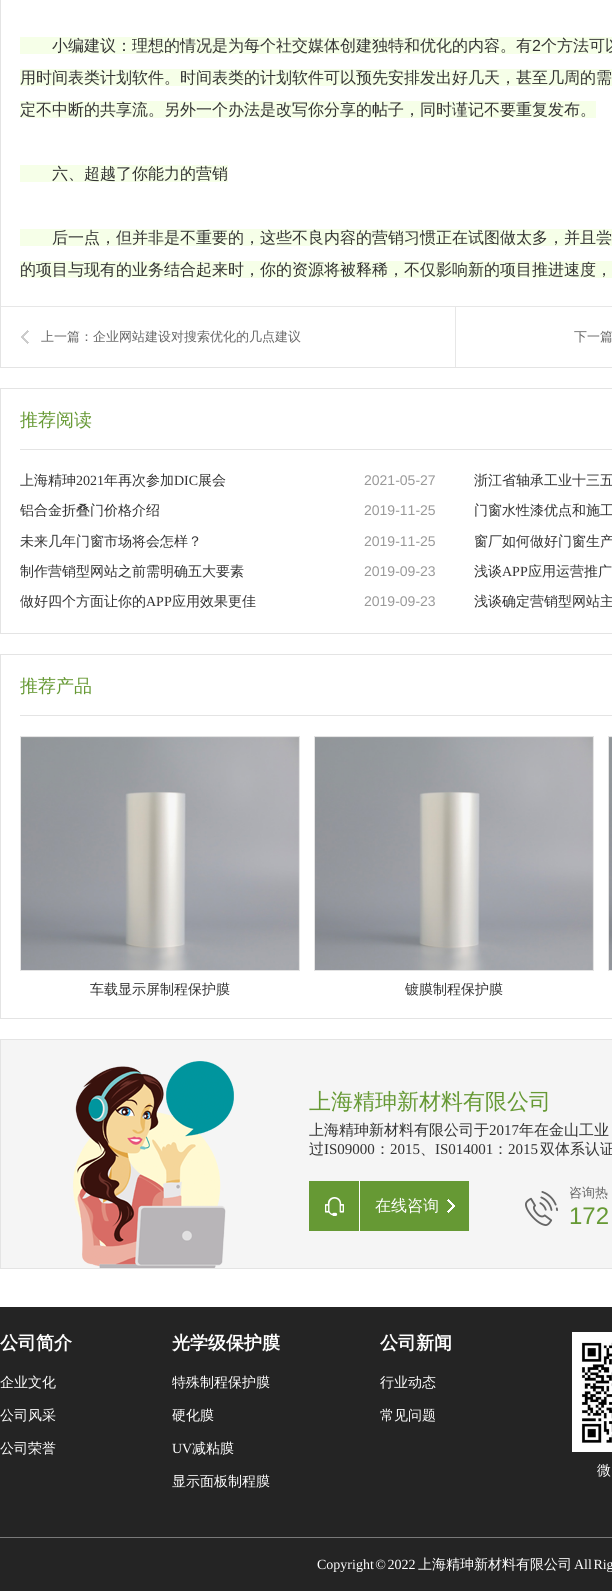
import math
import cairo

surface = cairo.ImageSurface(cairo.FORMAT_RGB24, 612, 1591)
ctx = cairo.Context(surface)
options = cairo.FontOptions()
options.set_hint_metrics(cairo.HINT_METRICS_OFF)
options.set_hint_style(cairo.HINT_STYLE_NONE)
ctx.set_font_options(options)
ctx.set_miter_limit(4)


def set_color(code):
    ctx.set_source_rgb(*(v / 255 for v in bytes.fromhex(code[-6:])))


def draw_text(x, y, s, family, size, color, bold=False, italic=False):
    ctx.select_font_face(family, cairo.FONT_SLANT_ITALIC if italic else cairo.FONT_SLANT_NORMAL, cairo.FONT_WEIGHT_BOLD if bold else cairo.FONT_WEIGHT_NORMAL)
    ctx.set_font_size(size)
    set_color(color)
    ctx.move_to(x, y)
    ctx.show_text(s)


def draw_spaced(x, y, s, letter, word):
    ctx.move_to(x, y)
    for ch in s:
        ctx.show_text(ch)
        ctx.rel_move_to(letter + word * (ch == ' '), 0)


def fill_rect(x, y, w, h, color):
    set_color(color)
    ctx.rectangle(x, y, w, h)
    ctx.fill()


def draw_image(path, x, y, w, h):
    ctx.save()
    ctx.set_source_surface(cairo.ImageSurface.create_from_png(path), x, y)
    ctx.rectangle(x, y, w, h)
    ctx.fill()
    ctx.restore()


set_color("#ffffff")
ctx.paint()
ctx.rectangle(0.5, -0.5, 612, 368)
set_color("#e4e4e4")
ctx.set_line_width(1)
ctx.stroke()
fill_rect(20, 37, 592, 17, "#f6ffe8")
draw_text(52, 51, "小编建议：理想的情况是为每个社交媒体创建独特和优化的内容。有", "WenQuanYi Zen Hei Medium", 16, "#333333")
draw_text(532, 51, "2", "Liberation Sans", 16, "#333333")
draw_text(541, 51, "个方法可以", "WenQuanYi Zen Hei Medium", 16, "#333333")
fill_rect(20, 69, 592, 17, "#f6ffe8")
draw_text(20, 83, "用时间表类计划软件。时间表类的计划软件可以预先安排发出好几天，甚至几周的需", "WenQuanYi Zen Hei Medium", 16, "#333333")
fill_rect(20, 101, 576, 17, "#f6ffe8")
draw_text(20, 115, "定不中断的共享流。另外一个办法是改写你分享的帖子，同时谨记不要重复发布。", "WenQuanYi Zen Hei Medium", 16, "#333333")
fill_rect(20, 165, 208, 17, "#f6ffe8")
draw_text(52, 179, "六、超越了你能力的营销", "WenQuanYi Zen Hei Medium", 16, "#333333")
fill_rect(20, 229, 592, 17, "#f6ffe8")
draw_text(52, 243, "后一点，但并非是不重要的，这些不良内容的营销习惯正在试图做太多，并且尝", "WenQuanYi Zen Hei Medium", 16, "#333333")
fill_rect(20, 261, 592, 17, "#f6ffe8")
draw_text(20, 275, "的项目与现有的业务结合起来时，你的资源将被释稀，不仅影响新的项目推进速度，", "WenQuanYi Zen Hei Medium", 16, "#333333")
fill_rect(1, 306, 611, 1, "#e7e7e7")
draw_image("assets/img1.png", 21, 330, 8, 14)
draw_text(41, 341, "上一篇：企业网站建设对搜索优化的几点建议", "WenQuanYi Zen Hei Medium", 13, "#666666")
fill_rect(455, 307, 1, 60, "#e7e7e7")
draw_text(574, 341, "下一篇", "WenQuanYi Zen Hei Medium", 13, "#666666")
ctx.rectangle(0.5, 388.5, 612, 245)
set_color("#e4e4e4")
ctx.stroke()
fill_rect(20, 449, 592, 1, "#e4e4e4")
draw_text(20, 426, "推荐阅读", "WenQuanYi Zen Hei Medium", 18, "#669934")
draw_text(20, 485, "上海精珅", "WenQuanYi Zen Hei Medium", 14, "#333333")
draw_text(76, 485, "2021", "Liberation Serif", 14, "#333333")
draw_text(104, 485, "年再次参加", "WenQuanYi Zen Hei Medium", 14, "#333333")
draw_text(174, 485, "DIC", "Liberation Serif", 14, "#333333")
draw_text(198, 485, "展会", "WenQuanYi Zen Hei Medium", 14, "#333333")
draw_text(364, 485, "2021-05-27", "Liberation Sans", 14, "#999999")
draw_text(474, 485, "浙江省轴承工业十三五", "WenQuanYi Zen Hei Medium", 14, "#333333")
draw_text(20, 515, "铝合金折叠门价格介绍", "WenQuanYi Zen Hei Medium", 14, "#333333")
draw_text(364, 515, "2019-11-25", "Liberation Sans", 14, "#999999")
draw_text(474, 515, "门窗水性漆优点和施工", "WenQuanYi Zen Hei Medium", 14, "#333333")
draw_text(20, 546, "未来几年门窗市场将会怎样？", "WenQuanYi Zen Hei Medium", 14, "#333333")
draw_text(364, 546, "2019-11-25", "Liberation Sans", 14, "#999999")
draw_text(474, 546, "窗厂如何做好门窗生产", "WenQuanYi Zen Hei Medium", 14, "#333333")
draw_text(20, 576, "制作营销型网站之前需明确五大要素", "WenQuanYi Zen Hei Medium", 14, "#333333")
draw_text(364, 576, "2019-09-23", "Liberation Sans", 14, "#999999")
draw_text(474, 576, "浅谈", "WenQuanYi Zen Hei Medium", 14, "#333333")
draw_text(502, 576, "APP", "Liberation Serif", 14, "#333333")
draw_text(528, 576, "应用运营推广", "WenQuanYi Zen Hei Medium", 14, "#333333")
draw_text(20, 606, "做好四个方面让你的", "WenQuanYi Zen Hei Medium", 14, "#333333")
draw_text(146, 606, "APP", "Liberation Serif", 14, "#333333")
draw_text(172, 606, "应用效果更佳", "WenQuanYi Zen Hei Medium", 14, "#333333")
draw_text(364, 606, "2019-09-23", "Liberation Sans", 14, "#999999")
draw_text(474, 606, "浅谈确定营销型网站主", "WenQuanYi Zen Hei Medium", 14, "#333333")
ctx.rectangle(0.5, 654.5, 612, 364)
set_color("#e4e4e4")
ctx.stroke()
fill_rect(20, 715, 592, 1, "#e4e4e4")
draw_text(20, 692, "推荐产品", "WenQuanYi Zen Hei Medium", 18, "#669934")
ctx.rectangle(608.5, 736.5, 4, 234)
set_color("#e4e4e4")
ctx.stroke()
draw_image("assets/img2.png", 609, 737, 3, 233)
ctx.rectangle(20.5, 736.5, 279, 234)
ctx.stroke()
draw_image("assets/img3.png", 21, 737, 278, 233)
draw_text(90, 994, "车载显示屏制程保护膜", "WenQuanYi Zen Hei Medium", 14, "#333333")
ctx.rectangle(314.5, 736.5, 279, 234)
set_color("#e4e4e4")
ctx.stroke()
draw_image("assets/img3.png", 315, 737, 278, 233)
draw_text(405, 994, "镀膜制程保护膜", "WenQuanYi Zen Hei Medium", 14, "#333333")
set_color("#f5f5f5")
ctx.rectangle(0.5, 1039.5, 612, 229)
ctx.fill_preserve()
set_color("#e4e4e4")
ctx.stroke()
draw_image("assets/img4.png", 73, 1061, 161, 207)
draw_text(309, 1109, "上海精珅新材料有限公司", "WenQuanYi Zen Hei Medium", 22, "#669934")
draw_text(309, 1135, "上海精珅新材料有限公司于", "WenQuanYi Zen Hei Medium", 15, "#333333")
draw_text(489, 1135, "2017", "Liberation Serif", 15, "#333333")
draw_text(519, 1135, "年在金山工业", "WenQuanYi Zen Hei Medium", 15, "#333333")
draw_text(309, 1154, "过", "WenQuanYi Zen Hei Medium", 15, "#333333")
draw_text(324, 1154, "IS09000", "Liberation Serif", 15, "#333333")
draw_text(375, 1154, "：", "WenQuanYi Zen Hei Medium", 15, "#333333")
draw_text(390, 1154, "2015", "Liberation Serif", 15, "#333333")
draw_text(420, 1154, "、", "WenQuanYi Zen Hei Medium", 15, "#333333")
draw_text(435, 1154, "IS014001", "Liberation Serif", 15, "#333333")
draw_text(493, 1154, "：", "WenQuanYi Zen Hei Medium", 15, "#333333")
draw_text(508, 1154, "2015", "Liberation Serif", 15, "#333333")
draw_text(540, 1154, "双体系认证", "WenQuanYi Zen Hei Medium", 15, "#333333")
fill_rect(309, 1181, 160, 50, "#669934")
draw_image("assets/img5.png", 325, 1197, 19, 19)
fill_rect(359, 1181, 1, 50, "#ffffff")
draw_text(375, 1211, "在线咨询", "WenQuanYi Zen Hei Medium", 16, "#ffffff")
draw_image("assets/img6.png", 447, 1199, 8, 14)
draw_image("assets/img7.png", 525, 1191, 33, 35)
draw_text(569, 1197, "咨询热", "WenQuanYi Zen Hei Medium", 13, "#666666")
draw_text(569, 1224, "172", "Liberation Sans", 24, "#669934")
fill_rect(0, 1307, 612, 284, "#242424")
fill_rect(0, 1537, 612, 1, "#797979")
draw_text(0, 1349, "公司简介", "WenQuanYi Zen Hei", 18, "#ffffff", bold=True)
draw_text(0, 1387, "企业文化", "WenQuanYi Zen Hei Medium", 14, "#ffffff")
draw_text(0, 1420, "公司风采", "WenQuanYi Zen Hei Medium", 14, "#ffffff")
draw_text(0, 1453, "公司荣誉", "WenQuanYi Zen Hei Medium", 14, "#ffffff")
draw_text(172, 1349, "光学级保护膜", "WenQuanYi Zen Hei", 18, "#ffffff", bold=True)
draw_text(172, 1387, "特殊制程保护膜", "WenQuanYi Zen Hei Medium", 14, "#ffffff")
draw_text(172, 1420, "硬化膜", "WenQuanYi Zen Hei Medium", 14, "#ffffff")
draw_text(172, 1453, "UV", "Liberation Serif", 14, "#ffffff")
draw_text(192, 1453, "减粘膜", "WenQuanYi Zen Hei Medium", 14, "#ffffff")
draw_text(172, 1486, "显示面板制程膜", "WenQuanYi Zen Hei Medium", 14, "#ffffff")
draw_text(380, 1349, "公司新闻", "WenQuanYi Zen Hei", 18, "#ffffff", bold=True)
draw_text(380, 1387, "行业动态", "WenQuanYi Zen Hei Medium", 14, "#ffffff")
draw_text(380, 1420, "常见问题", "WenQuanYi Zen Hei Medium", 14, "#ffffff")
draw_image("assets/img8.png", 572, 1332, 40, 120)
draw_text(597, 1475, "微", "WenQuanYi Zen Hei Medium", 14, "#ffffff")
ctx.select_font_face("Liberation Serif")
draw_spaced(317, 1569, "Copyright © 2022", 0, -2)
draw_text(418, 1569, "上海精珅新材料有限公司", "WenQuanYi Zen Hei Medium", 14, "#ffffff")
ctx.select_font_face("Liberation Serif")
draw_spaced(574, 1569, "All Rig", 0, -2)
surface.write_to_png("output.png")
